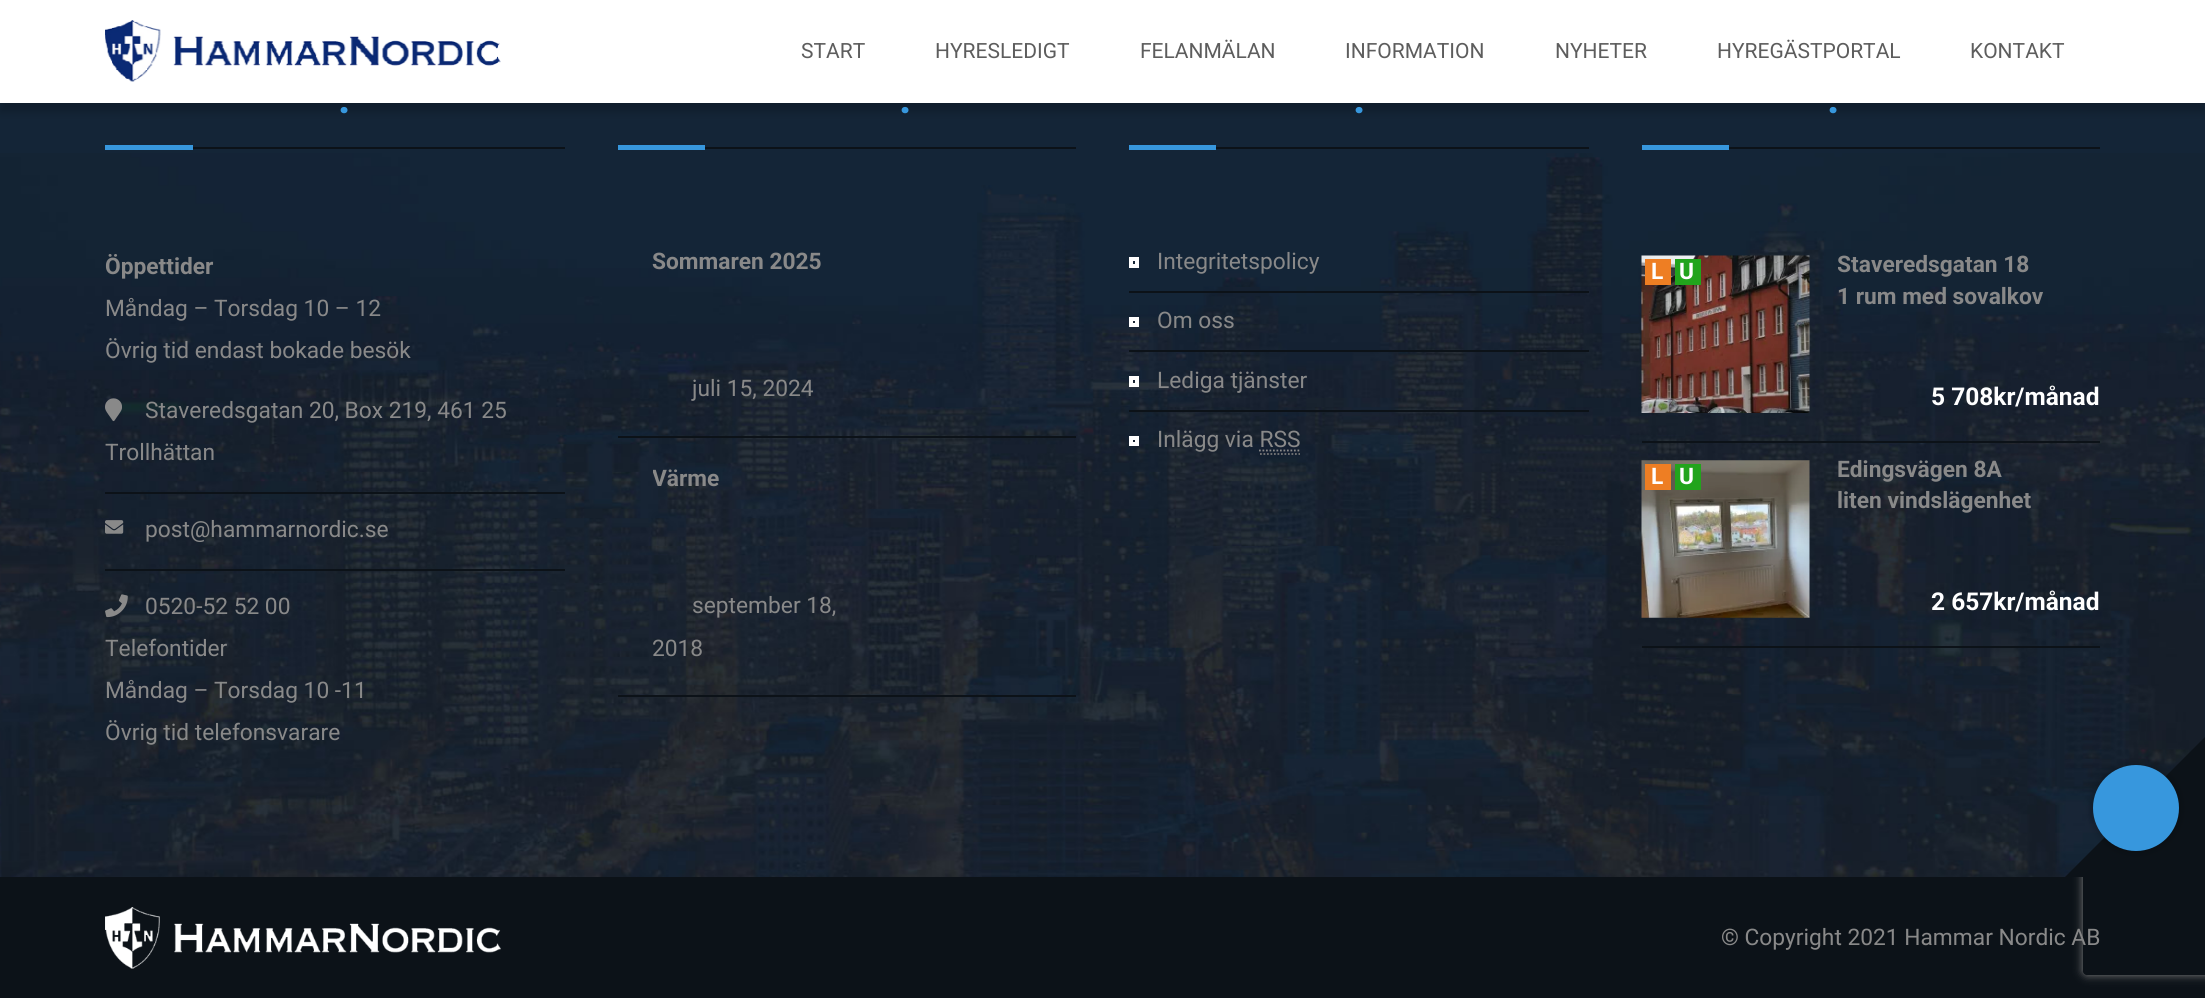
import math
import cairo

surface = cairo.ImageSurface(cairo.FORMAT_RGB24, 2205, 998)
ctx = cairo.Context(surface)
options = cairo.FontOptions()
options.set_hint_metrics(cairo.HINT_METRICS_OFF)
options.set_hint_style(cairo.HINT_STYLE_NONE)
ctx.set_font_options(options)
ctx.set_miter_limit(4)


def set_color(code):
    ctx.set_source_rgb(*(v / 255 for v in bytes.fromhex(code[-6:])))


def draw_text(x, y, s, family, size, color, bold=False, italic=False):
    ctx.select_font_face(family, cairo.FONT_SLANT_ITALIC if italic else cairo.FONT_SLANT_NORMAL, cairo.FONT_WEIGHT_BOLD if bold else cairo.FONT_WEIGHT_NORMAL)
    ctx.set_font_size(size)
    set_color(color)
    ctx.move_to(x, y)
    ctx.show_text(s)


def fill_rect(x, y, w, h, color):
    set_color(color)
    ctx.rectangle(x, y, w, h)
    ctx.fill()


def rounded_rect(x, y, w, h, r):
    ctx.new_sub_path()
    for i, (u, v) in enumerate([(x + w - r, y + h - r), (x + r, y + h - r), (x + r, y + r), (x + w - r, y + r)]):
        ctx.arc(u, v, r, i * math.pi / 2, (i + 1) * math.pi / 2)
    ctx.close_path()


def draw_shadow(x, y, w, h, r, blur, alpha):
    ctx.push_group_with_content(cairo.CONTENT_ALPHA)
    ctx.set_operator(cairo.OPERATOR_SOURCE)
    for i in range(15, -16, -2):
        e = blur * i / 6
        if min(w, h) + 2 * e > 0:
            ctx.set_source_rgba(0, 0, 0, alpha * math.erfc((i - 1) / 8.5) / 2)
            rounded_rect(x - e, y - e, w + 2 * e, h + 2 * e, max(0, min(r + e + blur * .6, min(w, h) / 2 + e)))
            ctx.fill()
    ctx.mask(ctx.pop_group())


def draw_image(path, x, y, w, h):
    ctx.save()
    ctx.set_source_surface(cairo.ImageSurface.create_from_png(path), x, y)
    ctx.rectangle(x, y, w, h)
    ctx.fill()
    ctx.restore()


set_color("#142537")
ctx.paint()
set_color("#000000")
draw_shadow(0, -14, 2205, 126, 0, 4.5, 0.2)
fill_rect(0, 0, 2205, 103, "#ffffff")
draw_image("assets/img1.png", 105, 20, 396, 62)
draw_text(801, 58, "START", "Roboto", 21, "#5d5d5d")
draw_text(935, 58, "HYRESLEDIGT", "Roboto", 21, "#5d5d5d")
draw_text(1140, 58, "FELANMÄLAN", "Roboto", 21, "#5d5d5d")
draw_text(1345, 58, "INFORMATION", "Roboto", 21, "#5d5d5d")
draw_text(1555, 58, "NYHETER", "Roboto", 21, "#5d5d5d")
draw_text(1717, 58, "HYREGÄSTPORTAL", "Roboto", 21, "#5d5d5d")
draw_text(1970, 58, "KONTAKT", "Roboto", 21, "#5d5d5d")
draw_image("assets/img2.png", 0, 153, 2205, 724)
draw_text(338, 113, ".", "Roboto", 43, "#3797dd", bold=True)
fill_rect(193, 147, 372, 2, "#0c1218")
fill_rect(105, 145, 88, 5, "#3797dd")
draw_text(105, 274, "Öppettider", "Roboto", 22.75, "#898989", bold=True)
draw_text(105, 316, "Måndag – Torsdag 10 – 12", "Roboto", 22.75, "#898989")
draw_text(105, 358, "Övrig tid endast bokade besök", "Roboto", 22.75, "#898989")
draw_image("assets/img3.png", 105, 398, 17, 24)
draw_text(145, 418, "Staveredsgatan 20, Box 219, 461 25", "Roboto", 22.75, "#898989")
draw_text(105, 460, "Trollhättan", "Roboto", 22.75, "#898989")
fill_rect(105, 492, 460, 2, "#0c1218")
draw_image("assets/img4.png", 105, 520, 19, 14)
draw_text(145, 537, "post@hammarnordic.se", "Roboto", 22.75, "#898989")
fill_rect(105, 569, 460, 2, "#0c1218")
draw_image("assets/img5.png", 105, 594, 23, 24)
draw_text(145, 614, "0520-52 52 00", "Roboto", 22.75, "#898989")
draw_text(105, 656, "Telefontider", "Roboto", 22.75, "#898989")
draw_text(105, 698, "Måndag – Torsdag 10 -11", "Roboto", 22.75, "#898989")
draw_text(105, 740, "Övrig tid telefonsvarare", "Roboto", 22.75, "#898989")
draw_text(899, 113, ".", "Roboto", 43, "#3797dd", bold=True)
fill_rect(705, 147, 371, 2, "#0c1218")
fill_rect(618, 145, 87, 5, "#3797dd")
draw_text(652, 269, "Sommaren 2025", "Roboto", 22.75, "#898989", bold=True)
draw_text(692, 396, "juli 15, 2024", "Roboto", 22.75, "#898989")
fill_rect(618, 436, 458, 2, "#0c1218")
ctx.save()
ctx.rectangle(653, 464, 210, 122)
ctx.clip()
draw_text(652, 486, "Värme", "Roboto", 22.75, "#898989", bold=True)
ctx.restore()
draw_text(692, 613, "september 18,", "Roboto", 22.75, "#898989")
draw_text(652, 656, "2018", "Roboto", 22.75, "#898989")
fill_rect(618, 695, 458, 2, "#0c1218")
draw_text(1353, 113, ".", "Roboto", 43, "#3797dd", bold=True)
fill_rect(1216, 147, 373, 2, "#0c1218")
fill_rect(1129, 145, 87, 5, "#3797dd")
fill_rect(1129, 291, 460, 2, "#0c1218")
ctx.rectangle(1131, 259, 6, 7)
set_color("#ffffff")
ctx.set_line_width(4)
ctx.stroke()
draw_text(1157, 269, "Integritetspolicy", "Roboto", 22.75, "#898989")
fill_rect(1129, 350, 460, 2, "#0c1218")
ctx.rectangle(1131, 319, 6, 6)
set_color("#ffffff")
ctx.stroke()
draw_text(1157, 328, "Om oss", "Roboto", 22.75, "#898989")
fill_rect(1129, 410, 460, 2, "#0c1218")
ctx.rectangle(1131, 378, 6, 7)
set_color("#ffffff")
ctx.stroke()
draw_text(1157, 388, "Lediga tjänster", "Roboto", 22.75, "#898989")
ctx.rectangle(1131, 438, 6, 6)
set_color("#ffffff")
ctx.stroke()
draw_text(1157, 447, "Inlägg via RSS", "Roboto", 22.75, "#898989")
ctx.new_path()
ctx.move_to(1260, 454)
ctx.line_to(1300, 454)
set_color("#777777")
ctx.set_line_width(1.8)
ctx.set_dash([1.75, 1.75])
ctx.stroke()
ctx.new_path()
ctx.move_to(1259, 450.5)
ctx.line_to(1300, 450.5)
set_color("#898989")
ctx.stroke()
draw_text(1827, 113, ".", "Roboto", 43, "#3797dd", bold=True)
fill_rect(1729, 147, 371, 2, "#0c1218")
fill_rect(1642, 145, 87, 5, "#3797dd")
fill_rect(1642, 441, 458, 2, "#0c1218")
draw_image("assets/img6.png", 1641, 255, 169, 158)
fill_rect(1645, 259, 26, 26, "#ee7e23")
draw_text(1651, 279, "L", "Roboto", 22.75, "#ffffff", bold=True)
fill_rect(1675, 259, 26, 26, "#22a41c")
draw_text(1679, 279, "U", "Roboto", 22.75, "#ffffff", bold=True)
ctx.save()
ctx.rectangle(1838, 250, 208, 126)
ctx.clip()
draw_text(1837, 272, "Staveredsgatan 18", "Roboto", 22.75, "#898989", bold=True)
ctx.restore()
draw_text(1837, 304, "1 rum med sovalkov", "Roboto", 22.75, "#898989", bold=True)
draw_text(1931, 405, "5 708kr/månad", "Roboto", 24.5, "#ffffff", bold=True)
fill_rect(1642, 646, 458, 2, "#0c1218")
draw_image("assets/img7.png", 1641, 460, 169, 158)
fill_rect(1645, 464, 26, 26, "#ee7e23")
draw_text(1651, 484, "L", "Roboto", 22.75, "#ffffff", bold=True)
fill_rect(1675, 464, 26, 26, "#22a41c")
draw_text(1679, 484, "U", "Roboto", 22.75, "#ffffff", bold=True)
draw_text(1837, 477, "Edingsvägen 8A", "Roboto", 22.75, "#898989", bold=True)
draw_text(1837, 508, "liten vindslägenhet", "Roboto", 22.75, "#898989", bold=True)
draw_text(1931, 610, "2 657kr/månad", "Roboto", 24.5, "#ffffff", bold=True)
fill_rect(0, 877, 2205, 121, "#0c1218")
draw_image("assets/img8.png", 105, 907, 396, 62)
draw_text(1721, 945, "© Copyright 2021 Hammar Nordic AB", "Roboto", 22.75, "#898989")
ctx.save()
ctx.set_fill_rule(cairo.FILL_RULE_EVEN_ODD)
ctx.new_path()
ctx.move_to(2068, 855)
ctx.line_to(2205, 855)
ctx.line_to(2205, 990)
ctx.line_to(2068, 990)
ctx.close_path()
ctx.move_to(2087, 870)
ctx.line_to(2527, 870)
ctx.curve_to(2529, 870, 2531, 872, 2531, 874)
ctx.line_to(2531, 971)
ctx.curve_to(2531, 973, 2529, 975, 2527, 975)
ctx.line_to(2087, 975)
ctx.curve_to(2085, 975, 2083, 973, 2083, 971)
ctx.line_to(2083, 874)
ctx.curve_to(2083, 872, 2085, 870, 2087, 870)
ctx.close_path()
ctx.clip()
set_color("#808080")
draw_shadow(2083, 870, 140, 105, 4, 4.5, 1)
ctx.restore()
set_color("#0c1218")
ctx.new_path()
ctx.move_to(2205, 877)
ctx.line_to(2065, 877)
ctx.line_to(2205, 737)
ctx.close_path()
ctx.fill()
set_color("#000000")
draw_shadow(2093, 765, 86, 86, 43, 4.5, 0.3)
set_color("#3797dd")
ctx.arc(2136, 808, 43, 0, 2 * math.pi)
ctx.fill()
surface.write_to_png("output.png")
